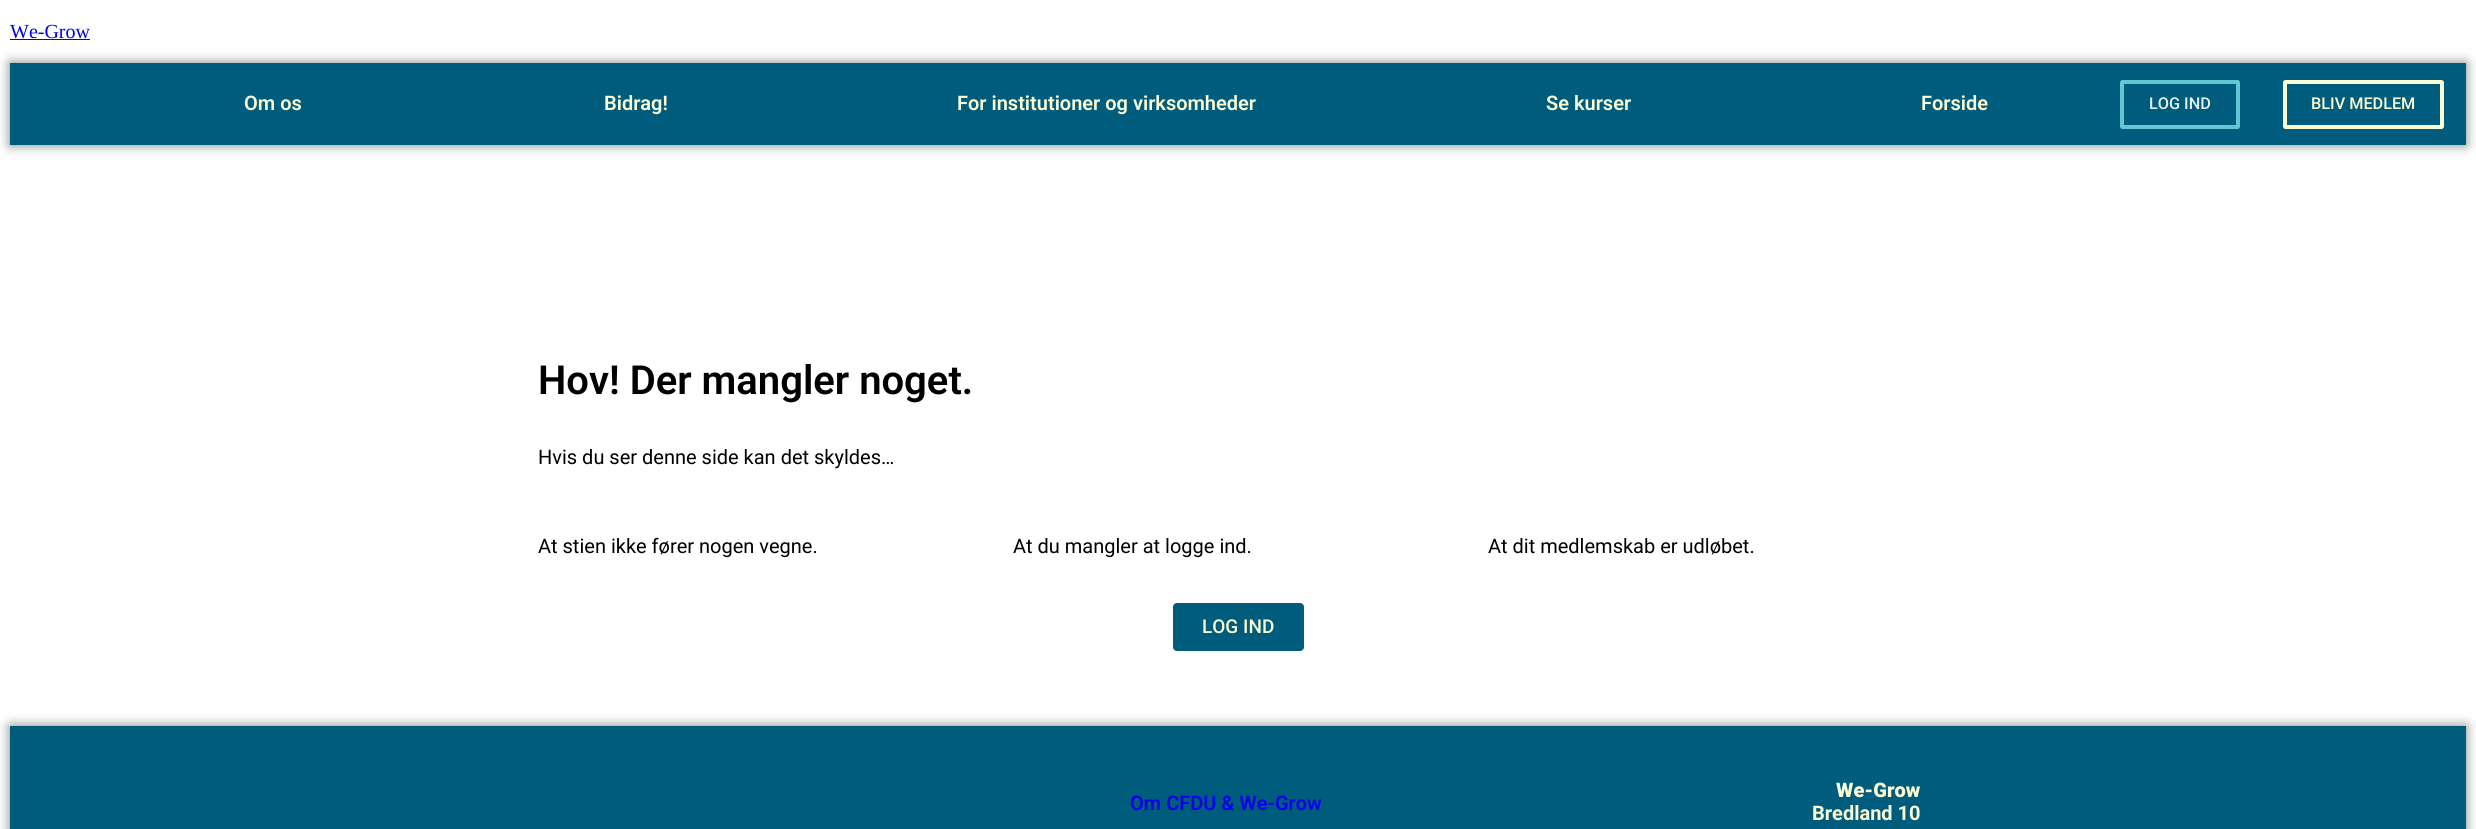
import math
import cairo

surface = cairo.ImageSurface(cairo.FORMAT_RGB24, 2476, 829)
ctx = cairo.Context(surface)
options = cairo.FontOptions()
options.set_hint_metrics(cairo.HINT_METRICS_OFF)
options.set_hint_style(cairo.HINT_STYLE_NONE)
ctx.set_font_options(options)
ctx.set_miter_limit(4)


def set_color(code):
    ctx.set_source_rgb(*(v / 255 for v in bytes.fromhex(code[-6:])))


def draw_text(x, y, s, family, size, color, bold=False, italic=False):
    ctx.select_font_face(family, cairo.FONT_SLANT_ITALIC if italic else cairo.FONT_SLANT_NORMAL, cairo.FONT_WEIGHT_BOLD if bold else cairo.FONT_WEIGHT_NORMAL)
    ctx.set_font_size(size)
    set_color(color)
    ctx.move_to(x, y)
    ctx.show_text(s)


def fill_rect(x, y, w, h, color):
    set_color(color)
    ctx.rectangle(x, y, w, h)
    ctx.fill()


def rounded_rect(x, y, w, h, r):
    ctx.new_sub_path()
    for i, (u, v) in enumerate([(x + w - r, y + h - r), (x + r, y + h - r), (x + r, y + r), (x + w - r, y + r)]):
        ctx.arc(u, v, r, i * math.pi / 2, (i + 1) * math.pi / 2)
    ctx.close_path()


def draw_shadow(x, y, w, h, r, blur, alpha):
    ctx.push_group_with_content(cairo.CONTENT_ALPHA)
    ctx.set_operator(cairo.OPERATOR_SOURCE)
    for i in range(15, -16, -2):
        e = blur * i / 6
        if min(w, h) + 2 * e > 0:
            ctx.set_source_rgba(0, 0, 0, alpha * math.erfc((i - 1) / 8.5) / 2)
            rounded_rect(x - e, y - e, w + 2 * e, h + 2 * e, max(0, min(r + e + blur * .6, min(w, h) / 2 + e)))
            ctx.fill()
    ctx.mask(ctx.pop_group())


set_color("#ffffff")
ctx.paint()
draw_text(10, 38, "We-Grow", "Liberation Serif", 20, "#0000ee")
fill_rect(10, 39, 80, 1, "#0000ee")
set_color("#000000")
draw_shadow(10, 63, 2456, 82, 0, 6, 0.5)
fill_rect(10, 63, 2456, 82, "#005c7c")
draw_text(244, 110, "Om os", "Roboto SemiBold", 20, "#fcfcd4")
draw_text(604, 110, "Bidrag!", "Roboto SemiBold", 20, "#fcfcd4")
draw_text(957, 110, "For institutioner og virksomheder", "Roboto SemiBold", 20, "#fcfcd4")
draw_text(1546, 110, "Se kurser", "Roboto SemiBold", 20, "#fcfcd4")
draw_text(1921, 110, "Forside", "Roboto SemiBold", 20, "#fcfcd4")
rounded_rect(2122, 82, 116, 45, 0.5)
set_color("#60c7d3")
ctx.set_line_width(4)
ctx.stroke()
draw_text(2149, 109, "LOG IND", "Roboto Medium", 16.25, "#e6f4f1")
rounded_rect(2285, 82, 157, 45, 0.5)
set_color("#fcfcd4")
ctx.stroke()
draw_text(2311, 109, "BLIV MEDLEM", "Roboto Medium", 16.25, "#fcfcd4")
draw_text(538, 394, "Hov! Der mangler noget.", "Roboto SemiBold", 40, "#000000")
draw_text(538, 464, "Hvis du ser denne side kan det skyldes…", "Roboto", 20, "#000000")
draw_text(538, 553, "At stien ikke fører nogen vegne.", "Roboto", 20, "#000000")
draw_text(1013, 553, "At du mangler at logge ind.", "Roboto", 20, "#000000")
set_color("#005c7c")
rounded_rect(1173, 603, 131, 48, 4)
ctx.fill()
draw_text(1202, 633, "LOG IND", "Roboto Medium", 19, "#fcfcd4")
draw_text(1488, 553, "At dit medlemskab er udløbet.", "Roboto", 20, "#000000")
set_color("#000000")
draw_shadow(10, 726, 2456, 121, 0, 6, 0.5)
fill_rect(10, 726, 2456, 103, "#005c7c")
draw_text(1130, 810, "Om CFDU & We-Grow", "Roboto SemiBold", 20, "#0000ee")
draw_text(1836, 797, "We-Grow", "Roboto Black", 20, "#fcfcd4")
draw_text(1812, 820, "Bredland 10", "Roboto", 20, "#fcfcd4", bold=True)
surface.write_to_png("output.png")
